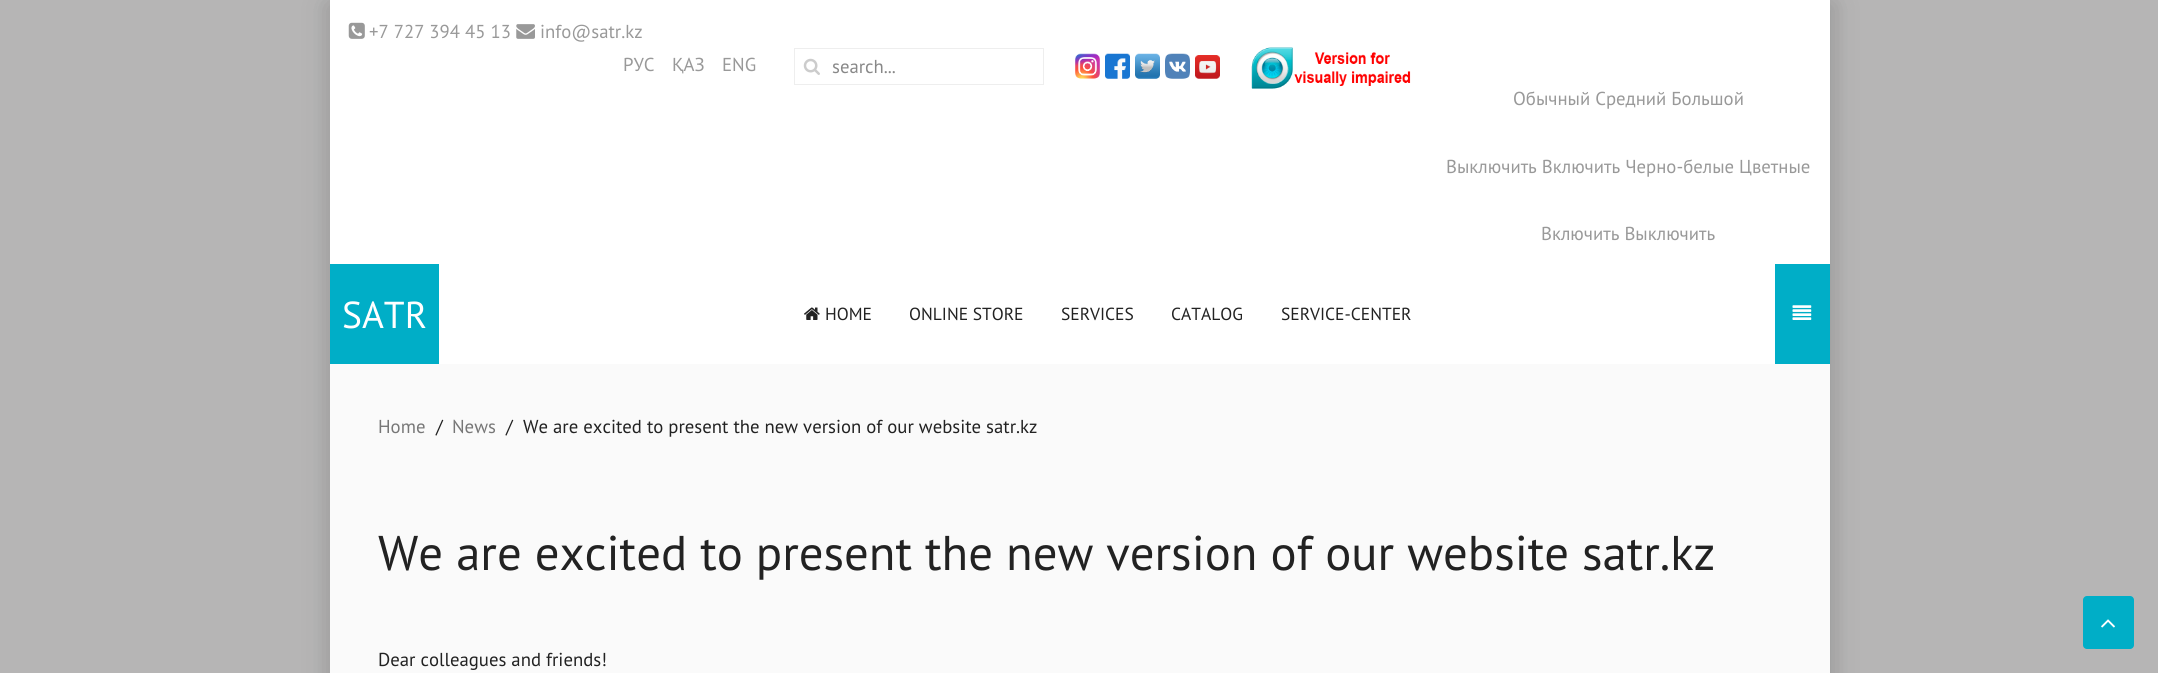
import math
import cairo

surface = cairo.ImageSurface(cairo.FORMAT_RGB24, 2158, 673)
ctx = cairo.Context(surface)
options = cairo.FontOptions()
options.set_hint_metrics(cairo.HINT_METRICS_OFF)
options.set_hint_style(cairo.HINT_STYLE_NONE)
ctx.set_font_options(options)
ctx.set_miter_limit(4)


def set_color(code):
    ctx.set_source_rgb(*(v / 255 for v in bytes.fromhex(code[-6:])))


def draw_text(x, y, s, family, size, color, bold=False, italic=False):
    ctx.select_font_face(family, cairo.FONT_SLANT_ITALIC if italic else cairo.FONT_SLANT_NORMAL, cairo.FONT_WEIGHT_BOLD if bold else cairo.FONT_WEIGHT_NORMAL)
    ctx.set_font_size(size)
    set_color(color)
    ctx.move_to(x, y)
    ctx.show_text(s)


def fill_rect(x, y, w, h, color):
    set_color(color)
    ctx.rectangle(x, y, w, h)
    ctx.fill()


def rounded_rect(x, y, w, h, r):
    ctx.new_sub_path()
    for i, (u, v) in enumerate([(x + w - r, y + h - r), (x + r, y + h - r), (x + r, y + r), (x + w - r, y + r)]):
        ctx.arc(u, v, r, i * math.pi / 2, (i + 1) * math.pi / 2)
    ctx.close_path()


def draw_shadow(x, y, w, h, r, blur, alpha):
    ctx.push_group_with_content(cairo.CONTENT_ALPHA)
    ctx.set_operator(cairo.OPERATOR_SOURCE)
    for i in range(15, -16, -2):
        e = blur * i / 6
        if min(w, h) + 2 * e > 0:
            ctx.set_source_rgba(0, 0, 0, alpha * math.erfc((i - 1) / 8.5) / 2)
            rounded_rect(x - e, y - e, w + 2 * e, h + 2 * e, max(0, min(r + e + blur * .6, min(w, h) / 2 + e)))
            ctx.fill()
    ctx.mask(ctx.pop_group())


def draw_image(path, x, y, w, h):
    ctx.save()
    ctx.set_source_surface(cairo.ImageSurface.create_from_png(path), x, y)
    ctx.rectangle(x, y, w, h)
    ctx.fill()
    ctx.restore()


set_color("#b6b5b5")
ctx.paint()
set_color("#999999")
draw_shadow(328, 5, 1490, 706, 0, 12.5, 1)
draw_shadow(343, 5, 1490, 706, 0, 12.5, 1)
fill_rect(330, 0, 1500, 264, "#ffffff")
draw_image("assets/img1.png", 348, 22, 17, 17)
draw_text(369, 38, "+7 727 394 45 13", "PT Sans", 18.75, "#999999")
draw_image("assets/img2.png", 516, 24, 19, 15)
draw_text(540, 38, "info@satr.kz", "PT Sans", 18.75, "#999999")
draw_text(623, 71, "РУС", "PT Sans", 18.75, "#999999")
draw_text(672, 71, "ҚАЗ", "PT Sans", 18.75, "#999999")
draw_text(722, 71, "ENG", "PT Sans", 18.75, "#999999")
ctx.rectangle(794.5, 48.5, 249, 36)
set_color("#eeeeee")
ctx.set_line_width(1)
ctx.stroke()
draw_image("assets/img3.png", 803, 58, 17, 17)
draw_text(832, 73, "search...", "PT Sans", 18.75, "#888888")
draw_image("assets/img4.png", 1075, 53, 25, 26)
draw_image("assets/img5.png", 1105, 53, 25, 26)
draw_image("assets/img6.png", 1135, 53, 25, 26)
draw_image("assets/img7.png", 1165, 53, 25, 26)
draw_image("assets/img8.png", 1195, 55, 25, 24)
draw_image("assets/img9.png", 1251, 47, 160, 42)
draw_text(1513, 105, "Обычный Средний Большой", "PT Sans", 18.75, "#999999")
draw_text(1446, 173, "Выключить Включить Черно-белые Цветные", "PT Sans", 18.75, "#999999")
draw_text(1541, 240, "Включить Выключить", "PT Sans", 18.75, "#999999")
fill_rect(439, 264, 1336, 100, "#ffffff")
fill_rect(330, 264, 109, 100, "#00aec7")
draw_text(342, 328, "SATR", "PT Sans", 37.5, "#ffffff")
draw_image("assets/img10.png", 804, 307, 16, 13)
draw_text(825, 320, "HOME", "PT Sans", 17.5, "#222222")
draw_text(909, 320, "ONLINE STORE", "PT Sans", 17.5, "#222222")
draw_text(1061, 320, "SERVICES", "PT Sans", 17.5, "#222222")
draw_text(1171, 320, "CATALOG", "PT Sans", 17.5, "#222222")
draw_text(1281, 320, "SERVICE-CENTER", "PT Sans", 17.5, "#222222")
fill_rect(1775, 264, 55, 100, "#00aec7")
draw_image("assets/img11.png", 1792, 305, 20, 15)
fill_rect(330, 364, 1500, 309, "#fafafa")
draw_text(378, 433, "Home", "PT Sans", 18.75, "#777777")
draw_text(436, 433, "/", "PT Sans", 18.75, "#222222")
draw_text(452, 433, "News", "PT Sans", 18.75, "#777777")
draw_text(506, 433, "/", "PT Sans", 18.75, "#222222")
draw_text(523, 433, "We are excited to present the new version of our website satr.kz", "PT Sans", 18.75, "#222222")
draw_text(378, 570, "We are excited to present the new version of our website satr.kz", "PT Sans", 48.75, "#222222")
draw_text(378, 666, "Dear colleagues and friends!", "PT Sans", 18.75, "#222222")
set_color("#00aec7")
rounded_rect(2083, 596, 51, 53, 4)
ctx.fill()
draw_image("assets/img12.png", 2101, 619, 14, 9)
surface.write_to_png("output.png")
